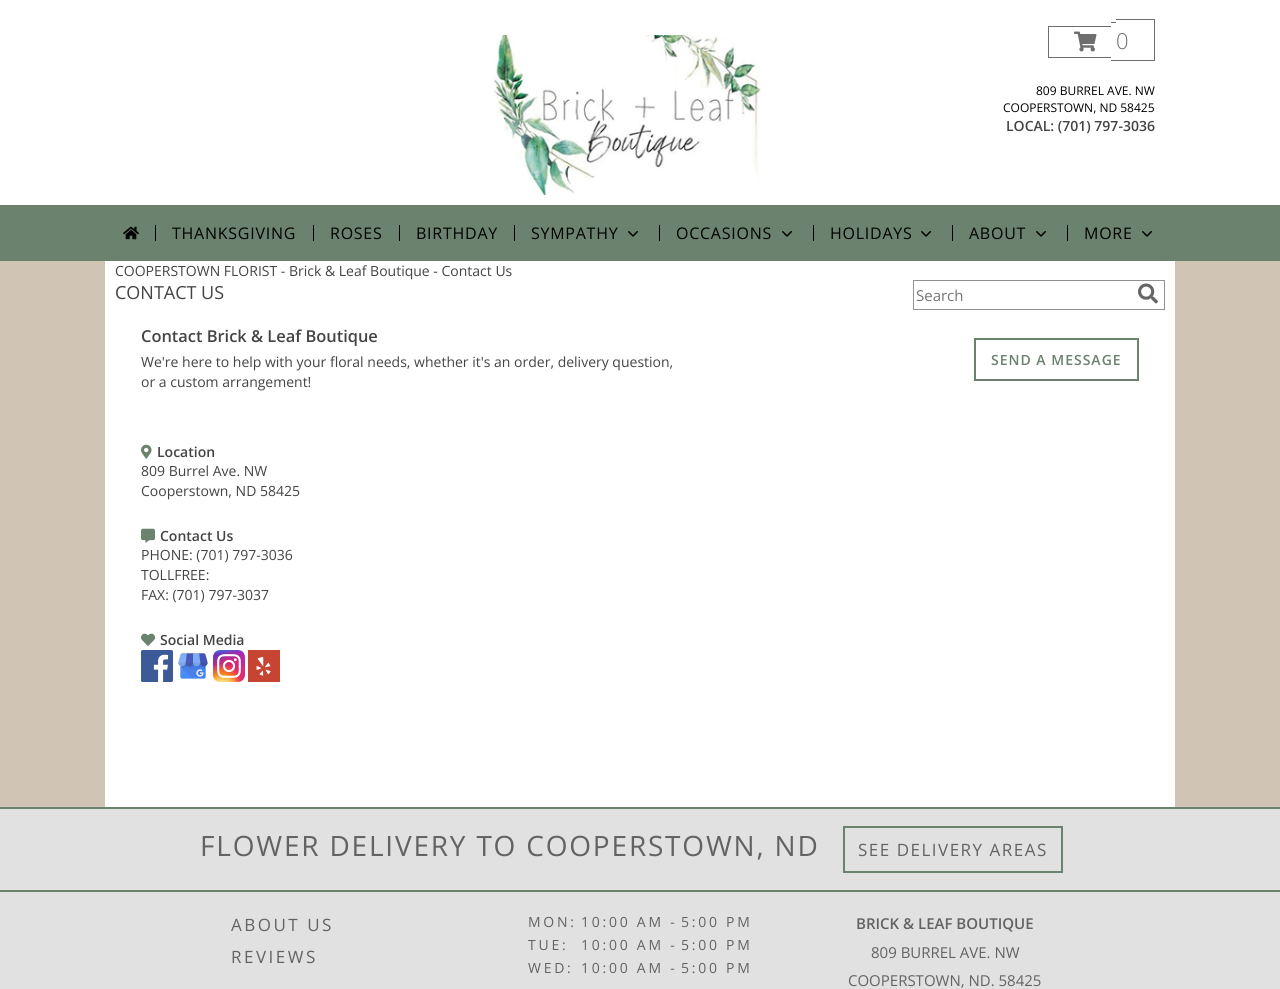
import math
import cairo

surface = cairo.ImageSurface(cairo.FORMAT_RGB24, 1280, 989)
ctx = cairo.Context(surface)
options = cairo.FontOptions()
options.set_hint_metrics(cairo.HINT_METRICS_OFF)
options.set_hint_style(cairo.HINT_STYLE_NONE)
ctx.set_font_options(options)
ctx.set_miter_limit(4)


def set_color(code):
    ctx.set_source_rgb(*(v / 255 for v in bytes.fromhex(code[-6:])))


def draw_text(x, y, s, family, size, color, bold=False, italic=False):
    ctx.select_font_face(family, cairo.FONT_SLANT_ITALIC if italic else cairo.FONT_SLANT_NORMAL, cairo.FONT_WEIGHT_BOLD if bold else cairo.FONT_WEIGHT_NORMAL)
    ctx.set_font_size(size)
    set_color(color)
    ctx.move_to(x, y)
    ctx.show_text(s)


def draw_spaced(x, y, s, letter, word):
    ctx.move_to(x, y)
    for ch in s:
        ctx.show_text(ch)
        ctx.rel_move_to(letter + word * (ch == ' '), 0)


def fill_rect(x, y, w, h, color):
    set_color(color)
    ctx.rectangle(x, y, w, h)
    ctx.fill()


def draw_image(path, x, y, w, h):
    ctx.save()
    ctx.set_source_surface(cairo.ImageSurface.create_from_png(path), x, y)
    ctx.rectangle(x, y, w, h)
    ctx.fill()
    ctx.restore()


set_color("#d0c4b4")
ctx.paint()
fill_rect(105, 261, 1070, 546, "#ffffff")
fill_rect(0, 0, 1280, 205, "#ffffff")
draw_image("assets/img1.png", 493, 35, 268, 160)
fill_rect(1048, 26, 63, 1, "#6e6e6e")
fill_rect(1048, 57, 63, 1, "#6e6e6e")
fill_rect(1048, 26, 1, 32, "#6e6e6e")
fill_rect(1111, 22, 5, 1, "#6e6e6e")
fill_rect(1111, 60, 5, 1, "#6e6e6e")
fill_rect(1116, 19, 39, 1, "#6e6e6e")
fill_rect(1154, 19, 1, 42, "#6e6e6e")
fill_rect(1116, 60, 39, 1, "#6e6e6e")
draw_image("assets/img2.png", 1074, 31, 23, 21)
draw_text(1116, 49, "0", "Open Sans Light", 22, "#6e6e6e")
draw_text(1036, 95, "809 BURREL AVE. NW", "Open Sans", 12, "#000000")
draw_text(1003, 112, "COOPERSTOWN, ND 58425", "Open Sans", 12, "#000000")
draw_text(1006, 131, "LOCAL: (701) 797-3036", "Open Sans SemiBold", 14, "#444444")
fill_rect(0, 205, 1280, 56, "#6b826e")
draw_image("assets/img3.png", 123, 226, 16, 14)
fill_rect(155, 225, 1, 16, "#000000")
ctx.select_font_face("Open Sans")
ctx.set_font_size(16)
draw_spaced(172, 239, "THANKSGIVING", 0.75, 0)
fill_rect(313, 225, 1, 16, "#000000")
draw_spaced(330, 239, "ROSES", 0.75, 0)
fill_rect(399, 225, 1, 16, "#000000")
draw_spaced(416, 239, "BIRTHDAY", 0.75, 0)
fill_rect(514, 225, 1, 16, "#000000")
draw_spaced(531, 239, "SYMPATHY", 0.75, 0)
draw_image("assets/img4.png", 628, 231, 10, 6)
fill_rect(659, 225, 1, 16, "#000000")
draw_spaced(676, 239, "OCCASIONS", 0.75, 0)
draw_image("assets/img4.png", 782, 231, 10, 6)
fill_rect(813, 225, 1, 16, "#000000")
draw_spaced(830, 239, "HOLIDAYS", 0.75, 0)
draw_image("assets/img4.png", 921, 231, 10, 6)
fill_rect(952, 225, 1, 16, "#000000")
draw_spaced(969, 239, "ABOUT", 0.75, 0)
draw_image("assets/img4.png", 1036, 231, 10, 6)
fill_rect(1067, 225, 1, 16, "#000000")
draw_spaced(1084, 239, "MORE", 0.75, 0)
draw_image("assets/img4.png", 1142, 231, 10, 6)
draw_text(115, 276, "COOPERSTOWN FLORIST - Brick & Leaf Boutique - Contact Us", "Open Sans", 14, "#444444")
draw_text(115, 299, "CONTACT US", "Open Sans", 18, "#444444")
ctx.rectangle(913.5, 280.5, 251, 29)
set_color("#919191")
ctx.set_line_width(1)
ctx.stroke()
draw_text(916, 301, "Search", "Open Sans", 15, "#757575")
draw_image("assets/img5.png", 1138, 283, 20, 21)
draw_text(141, 342, "Contact Brick & Leaf Boutique", "Open Sans SemiBold", 16.4, "#444444")
draw_text(141, 367, "We're here to help with your floral needs, whether it's an order, delivery question,", "Open Sans", 14, "#444444")
draw_text(141, 387, "or a custom arrangement!", "Open Sans", 14, "#444444")
ctx.rectangle(975, 339, 163, 41)
set_color("#6b826e")
ctx.set_line_width(2)
ctx.stroke()
ctx.select_font_face("Open Sans SemiBold")
draw_spaced(991, 365, "SEND A MESSAGE", 1, 0)
draw_image("assets/img6.png", 141, 444, 11, 15)
draw_text(157, 457, "Location", "Open Sans SemiBold", 14, "#444444")
draw_text(141, 476, "809 Burrel Ave. NW", "Open Sans", 14, "#444444")
draw_text(141, 496, "Cooperstown, ND 58425", "Open Sans", 14, "#444444")
draw_image("assets/img7.png", 141, 528, 14, 15)
draw_text(160, 541, "Contact Us", "Open Sans SemiBold", 14, "#444444")
draw_text(141, 560, "PHONE: (701) 797-3036", "Open Sans", 14, "#444444")
draw_text(141, 580, "TOLLFREE:", "Open Sans", 14, "#444444")
draw_text(141, 600, "FAX: (701) 797-3037", "Open Sans", 14, "#444444")
draw_image("assets/img8.png", 141, 633, 14, 13)
draw_text(160, 645, "Social Media", "Open Sans SemiBold", 14, "#444444")
draw_image("assets/img9.png", 141, 650, 32, 32)
draw_image("assets/img10.png", 178, 653, 30, 26)
draw_image("assets/img11.png", 213, 650, 32, 32)
draw_image("assets/img12.png", 248, 650, 32, 32)
fill_rect(0, 809, 1280, 81, "#e1e1e1")
fill_rect(0, 807, 1280, 2, "#6b826e")
fill_rect(0, 890, 1280, 2, "#6b826e")
ctx.select_font_face("Open Sans")
ctx.set_font_size(28)
set_color("#636363")
draw_spaced(200, 856, "FLOWER DELIVERY TO COOPERSTOWN, ND", 1.8, 0)
ctx.rectangle(844, 827, 218, 45)
set_color("#6b826e")
ctx.stroke()
ctx.set_font_size(17)
set_color("#636363")
draw_spaced(858, 856, "SEE DELIVERY AREAS", 1.5, 0)
fill_rect(0, 892, 1280, 97, "#e1e1e1")
set_color("#636363")
draw_spaced(231, 931, "ABOUT US", 2.5, 0)
draw_spaced(231, 963, "REVIEWS", 2.5, 0)
ctx.set_font_size(14)
draw_spaced(528, 927, "MON:", 2.75, 0)
draw_spaced(581, 927, "10:00 AM -", 2.75, 0)
draw_spaced(681, 927, "5:00 PM", 2.75, 0)
draw_spaced(528, 950, "TUE:", 2.75, 0)
draw_spaced(581, 950, "10:00 AM -", 2.75, 0)
draw_spaced(681, 950, "5:00 PM", 2.75, 0)
draw_spaced(528, 973, "WED:", 2.75, 0)
draw_spaced(581, 973, "10:00 AM -", 2.75, 0)
draw_spaced(681, 973, "5:00 PM", 2.75, 0)
draw_text(856, 929, "BRICK & LEAF BOUTIQUE", "Open Sans SemiBold", 15, "#636363")
draw_text(871, 958, "809 BURREL AVE. NW", "Open Sans", 15, "#636363")
draw_text(848, 986, "COOPERSTOWN, ND. 58425", "Open Sans", 15, "#636363")
surface.write_to_png("output.png")
